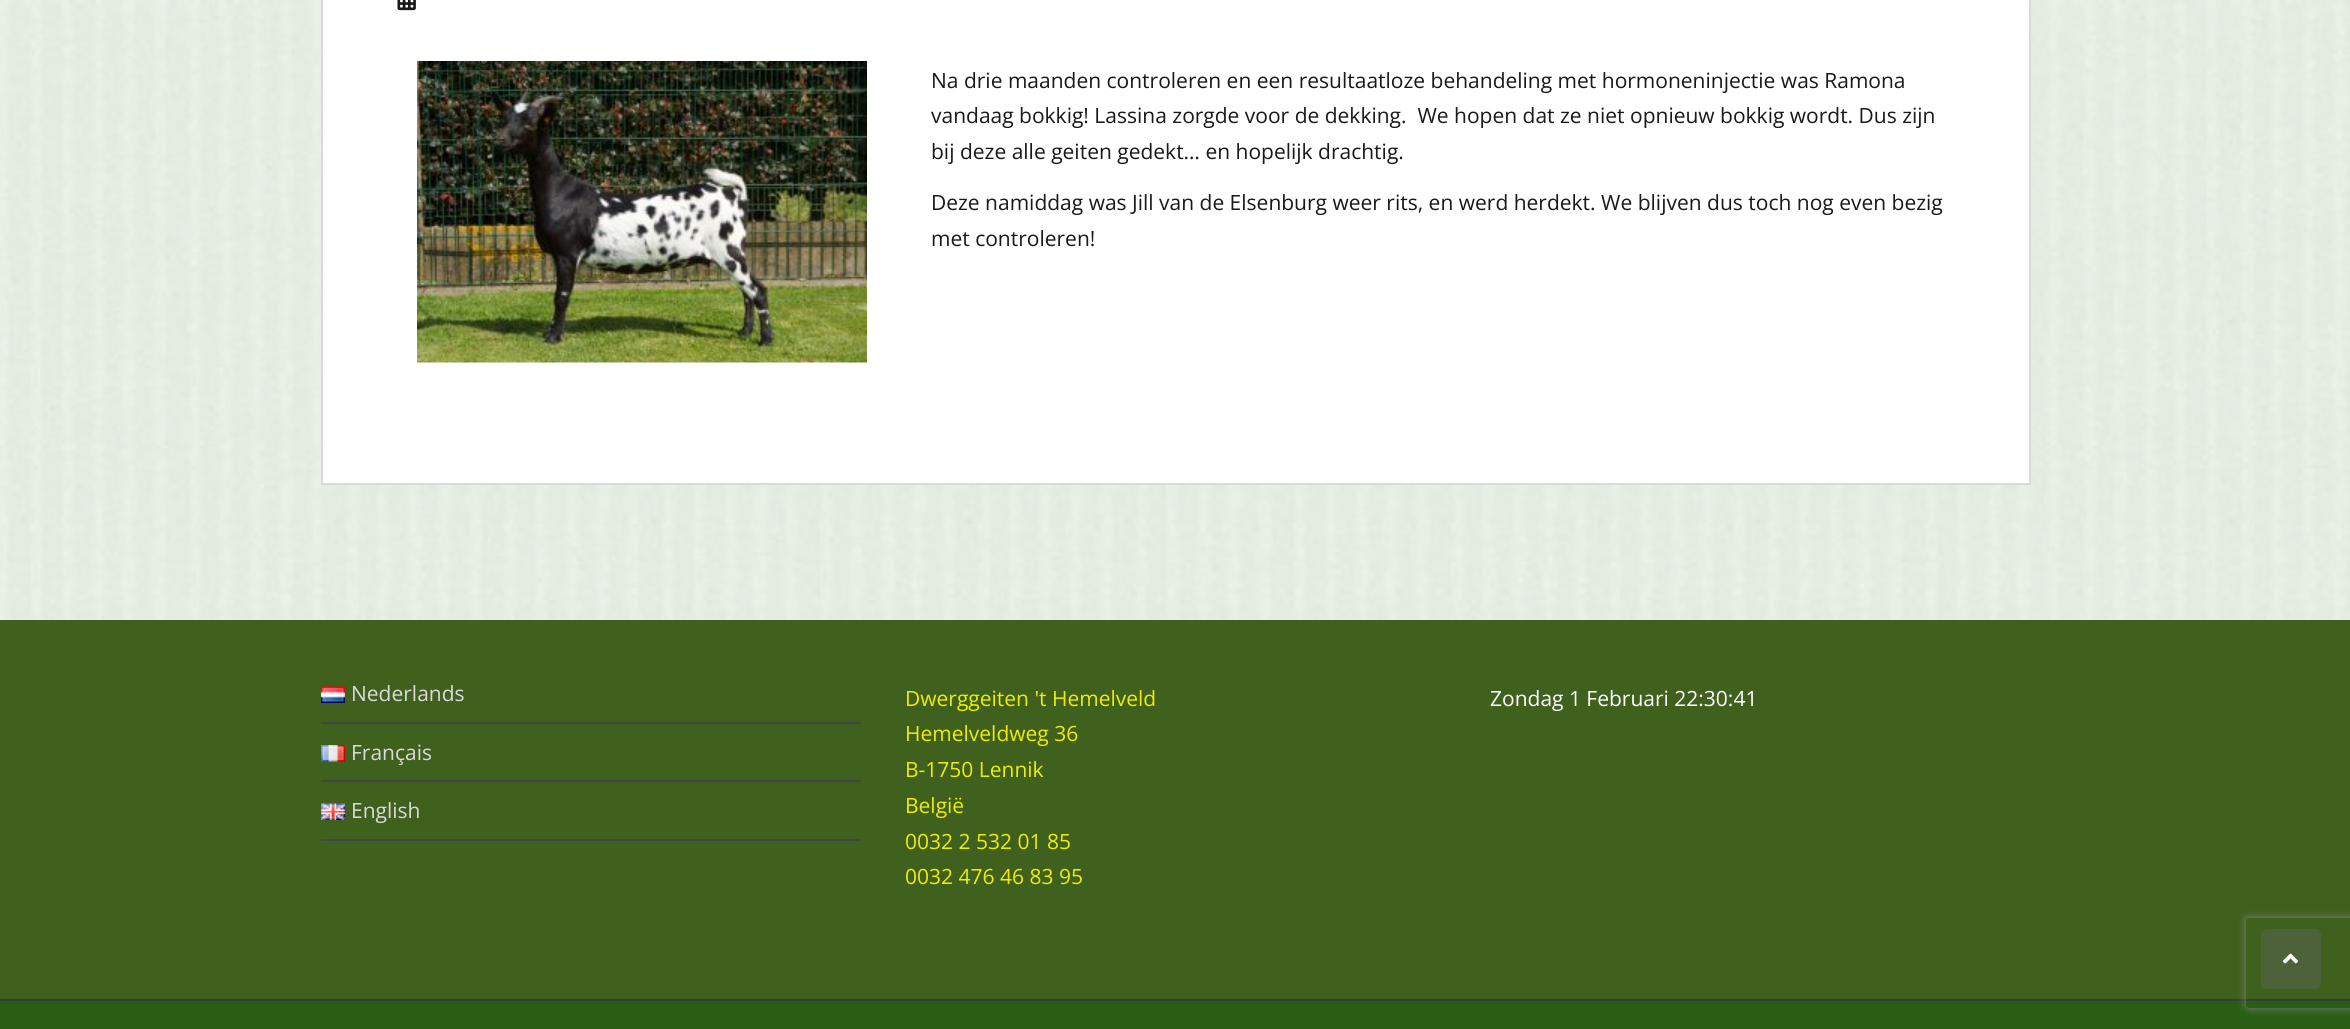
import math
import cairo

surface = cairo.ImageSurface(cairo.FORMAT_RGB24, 2350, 1029)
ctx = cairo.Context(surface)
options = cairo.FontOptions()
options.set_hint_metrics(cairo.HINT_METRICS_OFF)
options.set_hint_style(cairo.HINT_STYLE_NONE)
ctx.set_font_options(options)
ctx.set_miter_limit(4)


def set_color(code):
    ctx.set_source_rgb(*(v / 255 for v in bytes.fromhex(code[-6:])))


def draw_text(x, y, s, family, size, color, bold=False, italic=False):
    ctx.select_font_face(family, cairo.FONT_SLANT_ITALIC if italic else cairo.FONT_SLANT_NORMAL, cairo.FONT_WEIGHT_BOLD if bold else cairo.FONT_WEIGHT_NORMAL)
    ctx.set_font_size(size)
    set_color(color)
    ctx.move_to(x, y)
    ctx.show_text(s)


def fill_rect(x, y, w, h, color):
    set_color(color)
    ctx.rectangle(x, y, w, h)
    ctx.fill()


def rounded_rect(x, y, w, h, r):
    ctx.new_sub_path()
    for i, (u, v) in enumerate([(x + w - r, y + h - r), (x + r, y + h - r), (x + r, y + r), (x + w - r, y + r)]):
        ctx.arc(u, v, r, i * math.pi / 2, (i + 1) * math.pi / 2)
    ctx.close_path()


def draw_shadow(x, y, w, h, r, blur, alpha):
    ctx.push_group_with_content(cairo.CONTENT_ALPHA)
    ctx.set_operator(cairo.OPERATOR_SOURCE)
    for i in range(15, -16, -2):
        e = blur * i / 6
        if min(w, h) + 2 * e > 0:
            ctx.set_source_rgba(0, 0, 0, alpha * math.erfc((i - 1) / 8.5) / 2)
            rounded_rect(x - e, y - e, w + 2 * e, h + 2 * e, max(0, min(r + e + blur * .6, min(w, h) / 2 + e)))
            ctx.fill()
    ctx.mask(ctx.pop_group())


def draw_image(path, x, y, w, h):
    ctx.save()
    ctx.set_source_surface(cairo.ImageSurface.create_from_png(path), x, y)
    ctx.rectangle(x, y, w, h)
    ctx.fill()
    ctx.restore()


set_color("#ffffff")
ctx.paint()
draw_image("assets/img1.png", 0, 0, 2350, 620)
set_color("#ffffff")
ctx.rectangle(322, -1, 1708, 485)
ctx.fill_preserve()
set_color("#dadada")
ctx.stroke()
draw_image("assets/img2.png", 397, 0, 19, 11)
draw_image("assets/img3.png", 417, 61, 450, 302)
draw_text(931, 88, "Na drie maanden controleren en een resultaatloze behandeling met hormoneninjectie was Ramona", "Open Sans", 21, "#191919")
draw_text(931, 123, "vandaag bokkig! Lassina zorgde voor de dekking.  We hopen dat ze niet opnieuw bokkig wordt. Dus zijn", "Open Sans", 21, "#191919")
draw_text(931, 159, "bij deze alle geiten gedekt… en hopelijk drachtig.", "Open Sans", 21, "#191919")
draw_text(931, 210, "Deze namiddag was Jill van de Elsenburg weer rits, en werd herdekt. We blijven dus toch nog even bezig", "Open Sans", 21, "#191919")
draw_text(931, 246, "met controleren!", "Open Sans", 21, "#191919")
fill_rect(0, 620, 2350, 379, "#40601e")
fill_rect(321, 722, 540, 2, "#444444")
draw_image("assets/img4.png", 321, 686, 24, 17)
draw_text(351, 701, "Nederlands", "Open Sans", 21, "#dadada")
fill_rect(321, 780, 540, 2, "#444444")
draw_image("assets/img5.png", 321, 745, 24, 17)
draw_text(351, 760, "Français", "Open Sans", 21, "#dadada")
fill_rect(321, 839, 540, 2, "#444444")
draw_image("assets/img6.png", 321, 803, 24, 17)
draw_text(351, 818, "English", "Open Sans", 21, "#dadada")
draw_text(905, 706, "Dwerggeiten 't Hemelveld", "Open Sans", 21, "#eded07")
draw_text(905, 741, "Hemelveldweg 36", "Open Sans", 21, "#eded07")
draw_text(905, 777, "B-1750 Lennik", "Open Sans", 21, "#eded07")
draw_text(905, 813, "België", "Open Sans", 21, "#eded07")
draw_text(905, 849, "0032 2 532 01 85", "Open Sans", 21, "#eded07")
draw_text(905, 884, "0032 476 46 83 95", "Open Sans", 21, "#eded07")
draw_text(1490, 706, "Zondag 1 Februari 22:30:41", "Open Sans", 21, "#ffffff")
fill_rect(0, 1001, 2350, 28, "#295e14")
fill_rect(0, 999, 2350, 2, "#3a3a3a")
ctx.save()
ctx.set_fill_rule(cairo.FILL_RULE_EVEN_ODD)
ctx.new_path()
ctx.move_to(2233, 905)
ctx.line_to(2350, 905)
ctx.line_to(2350, 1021)
ctx.line_to(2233, 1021)
ctx.close_path()
ctx.move_to(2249, 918)
ctx.line_to(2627, 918)
ctx.curve_to(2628.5, 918, 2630, 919.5, 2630, 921)
ctx.line_to(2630, 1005)
ctx.curve_to(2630, 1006.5, 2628.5, 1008, 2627, 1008)
ctx.line_to(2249, 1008)
ctx.curve_to(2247.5, 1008, 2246, 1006.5, 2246, 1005)
ctx.line_to(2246, 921)
ctx.curve_to(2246, 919.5, 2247.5, 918, 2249, 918)
ctx.close_path()
ctx.clip()
set_color("#808080")
draw_shadow(2246, 918, 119, 90, 3, 4, 1)
ctx.restore()
set_color("#4e623a")
rounded_rect(2261, 929, 60, 60, 6)
ctx.fill()
draw_image("assets/img7.png", 2283, 953, 15, 11)
surface.write_to_png("output.png")
